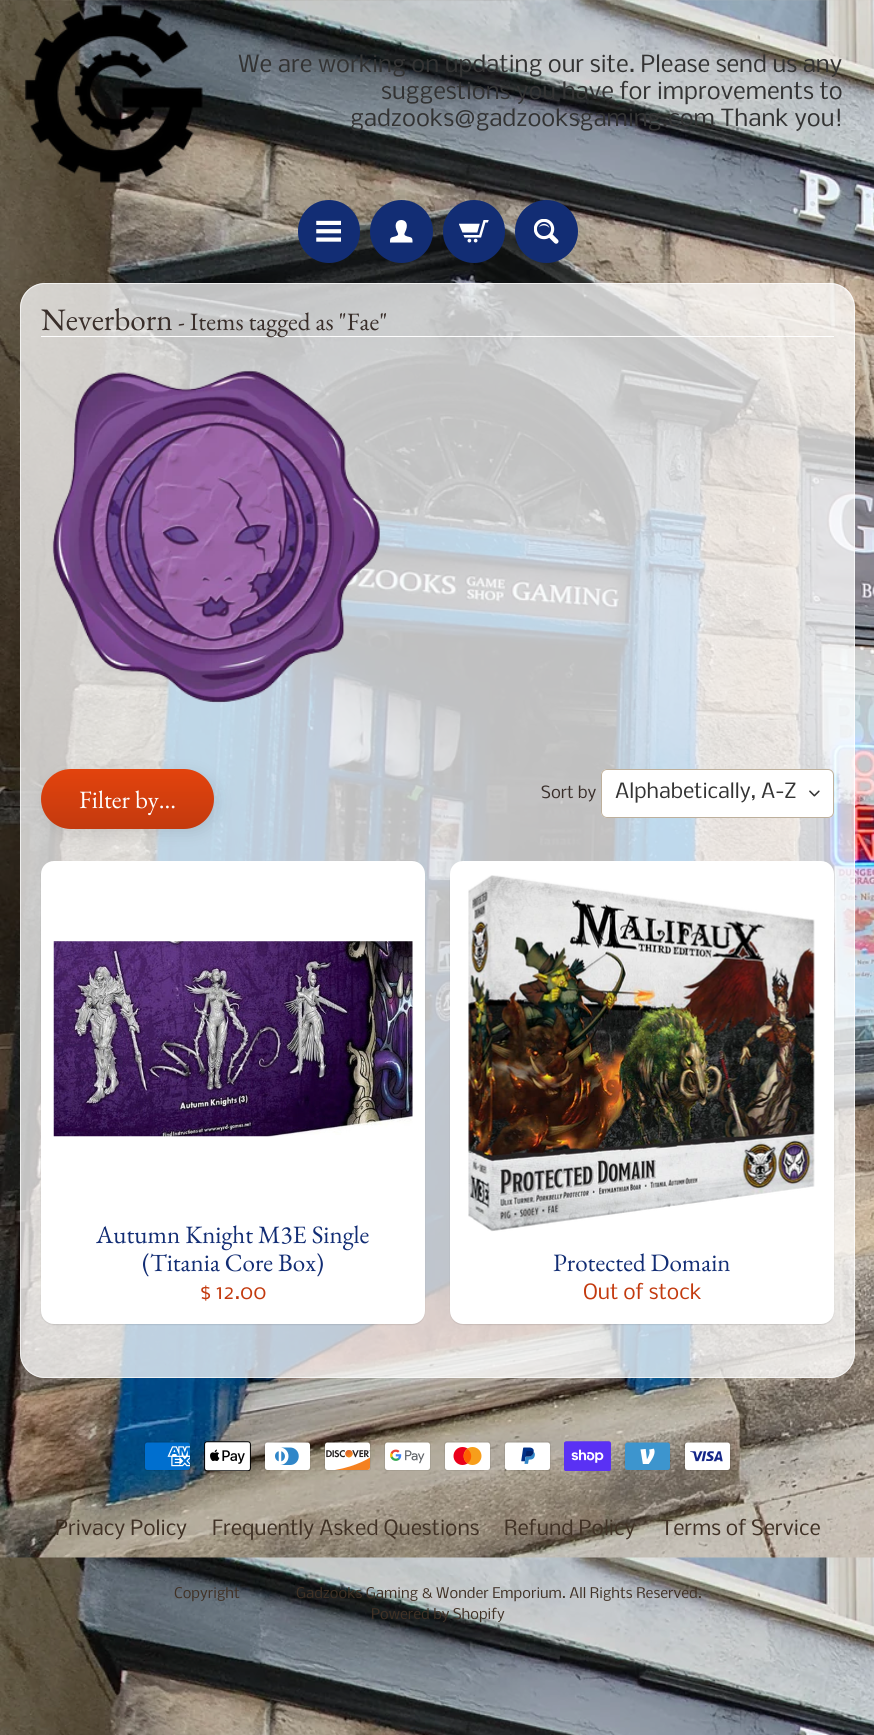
import math
import cairo

surface = cairo.ImageSurface(cairo.FORMAT_RGB24, 874, 1735)
ctx = cairo.Context(surface)
options = cairo.FontOptions()
options.set_hint_metrics(cairo.HINT_METRICS_OFF)
options.set_hint_style(cairo.HINT_STYLE_NONE)
ctx.set_font_options(options)
ctx.set_miter_limit(4)


def set_color(code):
    ctx.set_source_rgb(*(v / 255 for v in bytes.fromhex(code[-6:])))


def draw_text(x, y, s, family, size, color, bold=False, italic=False):
    ctx.select_font_face(family, cairo.FONT_SLANT_ITALIC if italic else cairo.FONT_SLANT_NORMAL, cairo.FONT_WEIGHT_BOLD if bold else cairo.FONT_WEIGHT_NORMAL)
    ctx.set_font_size(size)
    set_color(color)
    ctx.move_to(x, y)
    ctx.show_text(s)


def fill_rect(x, y, w, h, color):
    set_color(color)
    ctx.rectangle(x, y, w, h)
    ctx.fill()


def rounded_rect(x, y, w, h, r):
    ctx.new_sub_path()
    for i, (u, v) in enumerate([(x + w - r, y + h - r), (x + r, y + h - r), (x + r, y + r), (x + w - r, y + r)]):
        ctx.arc(u, v, r, i * math.pi / 2, (i + 1) * math.pi / 2)
    ctx.close_path()


def draw_shadow(x, y, w, h, r, blur, alpha):
    ctx.push_group_with_content(cairo.CONTENT_ALPHA)
    ctx.set_operator(cairo.OPERATOR_SOURCE)
    for i in range(15, -16, -2):
        e = blur * i / 6
        if min(w, h) + 2 * e > 0:
            ctx.set_source_rgba(0, 0, 0, alpha * math.erfc((i - 1) / 8.5) / 2)
            rounded_rect(x - e, y - e, w + 2 * e, h + 2 * e, max(0, min(r + e + blur * .6, min(w, h) / 2 + e)))
            ctx.fill()
    ctx.mask(ctx.pop_group())


def draw_image(path, x, y, w, h):
    ctx.save()
    ctx.set_source_surface(cairo.ImageSurface.create_from_png(path), x, y)
    ctx.rectangle(x, y, w, h)
    ctx.fill()
    ctx.restore()


set_color("#ffffff")
ctx.paint()
draw_image("assets/img1.png", 0, 0, 874, 1735)
draw_image("assets/img2.png", 24, 5, 179, 178)
draw_text(238, 72, "We are working on updating our site. Please send us any", "Nobile", 22.5, "#333333")
draw_text(381, 99, "suggestions you have for improvements to", "Nobile", 22.5, "#333333")
draw_text(350, 126, "gadzooks@gadzooksgaming.com Thank you!", "Nobile", 22.5, "#333333")
set_color("#122d74")
rounded_rect(300, 202, 58, 59, 29)
ctx.fill_preserve()
ctx.set_line_width(4)
ctx.stroke()
draw_image("assets/img3.png", 316, 220, 25, 22)
ctx.arc(401.5, 231.5, 29.5, 0, 2 * math.pi)
ctx.fill_preserve()
ctx.stroke()
draw_image("assets/img4.png", 390, 220, 23, 23)
rounded_rect(445, 202, 58, 59, 29)
ctx.fill_preserve()
ctx.stroke()
draw_image("assets/img5.png", 459, 220, 30, 23)
ctx.arc(546.5, 231.5, 29.5, 0, 2 * math.pi)
ctx.fill_preserve()
ctx.stroke()
draw_image("assets/img6.png", 534, 219, 25, 25)
ctx.set_source_rgba(1, 1, 1, 0.75)
rounded_rect(20, 283, 835, 1095, 25)
ctx.fill()
rounded_rect(20.5, 283.5, 834, 1094, 24.5)
ctx.set_source_rgba(1, 1, 1, 0.7)
ctx.set_line_width(1)
ctx.stroke()
fill_rect(41, 336, 793, 1, "#ffffff")
draw_text(41, 330, "Neverborn", "EB Garamond", 31.25, "#392e2a")
draw_text(178, 330, "- Items tagged as \"Fae\"", "EB Garamond", 25, "#392e2a")
draw_image("assets/img7.png", 52, 370, 329, 333)
set_color("#000000")
draw_shadow(45, 773, 173, 60, 30, 7.5, 0.1)
gradient = cairo.LinearGradient(128, 769, 128, 829)
gradient.add_color_stop_rgba(0, 0.89, 0.263, 0.051, 1)
gradient.add_color_stop_rgba(1, 0.765, 0.227, 0.055, 1)
ctx.set_source(gradient)
rounded_rect(41, 769, 173, 60, 30)
ctx.fill()
draw_text(79, 808, "Filter by...", "EB Garamond", 25, "#ffffff")
draw_text(541, 798, "Sort by", "Nobile", 16, "#392e2a")
set_color("#ffffff")
rounded_rect(601, 769, 233, 49, 6)
ctx.fill()
draw_image("assets/img8.png", 809, 790, 11, 7)
rounded_rect(601.5, 769.5, 232, 48, 5.5)
set_color("#bdaf9b")
ctx.stroke()
draw_text(615, 798, "Alphabetically, A-Z", "Nobile", 20, "#333333")
set_color("#000000")
draw_shadow(41, 863, 384, 462, 13, 0.5, 0.1)
set_color("#ffffff")
rounded_rect(41, 861, 384, 463, 13)
ctx.fill()
draw_image("assets/img9.png", 53, 941, 360, 196)
draw_text(96, 1243, "Autumn Knight M3E Single", "EB Garamond", 25, "#122d74")
draw_text(142, 1271, "(Titania Core Box)", "EB Garamond", 25, "#122d74")
draw_text(200, 1299, "$ 12.00", "Nobile", 20, "#c33a0e")
set_color("#000000")
draw_shadow(450, 863, 384, 462, 13, 0.5, 0.1)
set_color("#ffffff")
rounded_rect(450, 861, 384, 463, 13)
ctx.fill()
draw_image("assets/img10.png", 468, 875, 347, 357)
draw_text(553, 1271, "Protected Domain", "EB Garamond", 25, "#122d74")
draw_text(583, 1299, "Out of stock", "Nobile", 20, "#c33a0e")
draw_image("assets/img11.png", 144, 1441, 47, 30)
draw_image("assets/img12.png", 204, 1441, 47, 30)
draw_image("assets/img13.png", 264, 1441, 47, 30)
draw_image("assets/img14.png", 324, 1441, 47, 30)
draw_image("assets/img15.png", 384, 1441, 47, 30)
draw_image("assets/img16.png", 444, 1441, 47, 30)
draw_image("assets/img17.png", 504, 1441, 47, 30)
draw_image("assets/img18.png", 564, 1441, 47, 30)
draw_image("assets/img19.png", 624, 1441, 47, 30)
draw_image("assets/img20.png", 684, 1441, 47, 30)
draw_text(55, 1535, "Privacy Policy", "Nobile", 20, "#403125")
draw_text(212, 1535, "Frequently Asked Questions", "Nobile", 20, "#403125")
draw_text(504, 1535, "Refund Policy", "Nobile", 20, "#403125")
draw_text(661, 1535, "Terms of Service", "Nobile", 20, "#403125")
draw_text(174, 1598, "Copyright", "Nobile", 14, "#403125")
draw_text(296, 1598, "Gadzooks Gaming & Wonder Emporium. All Rights Reserved.", "Nobile", 14, "#403125")
draw_text(371, 1619, "Powered by Shopify", "Nobile", 14, "#403125")
surface.write_to_png("output.png")
